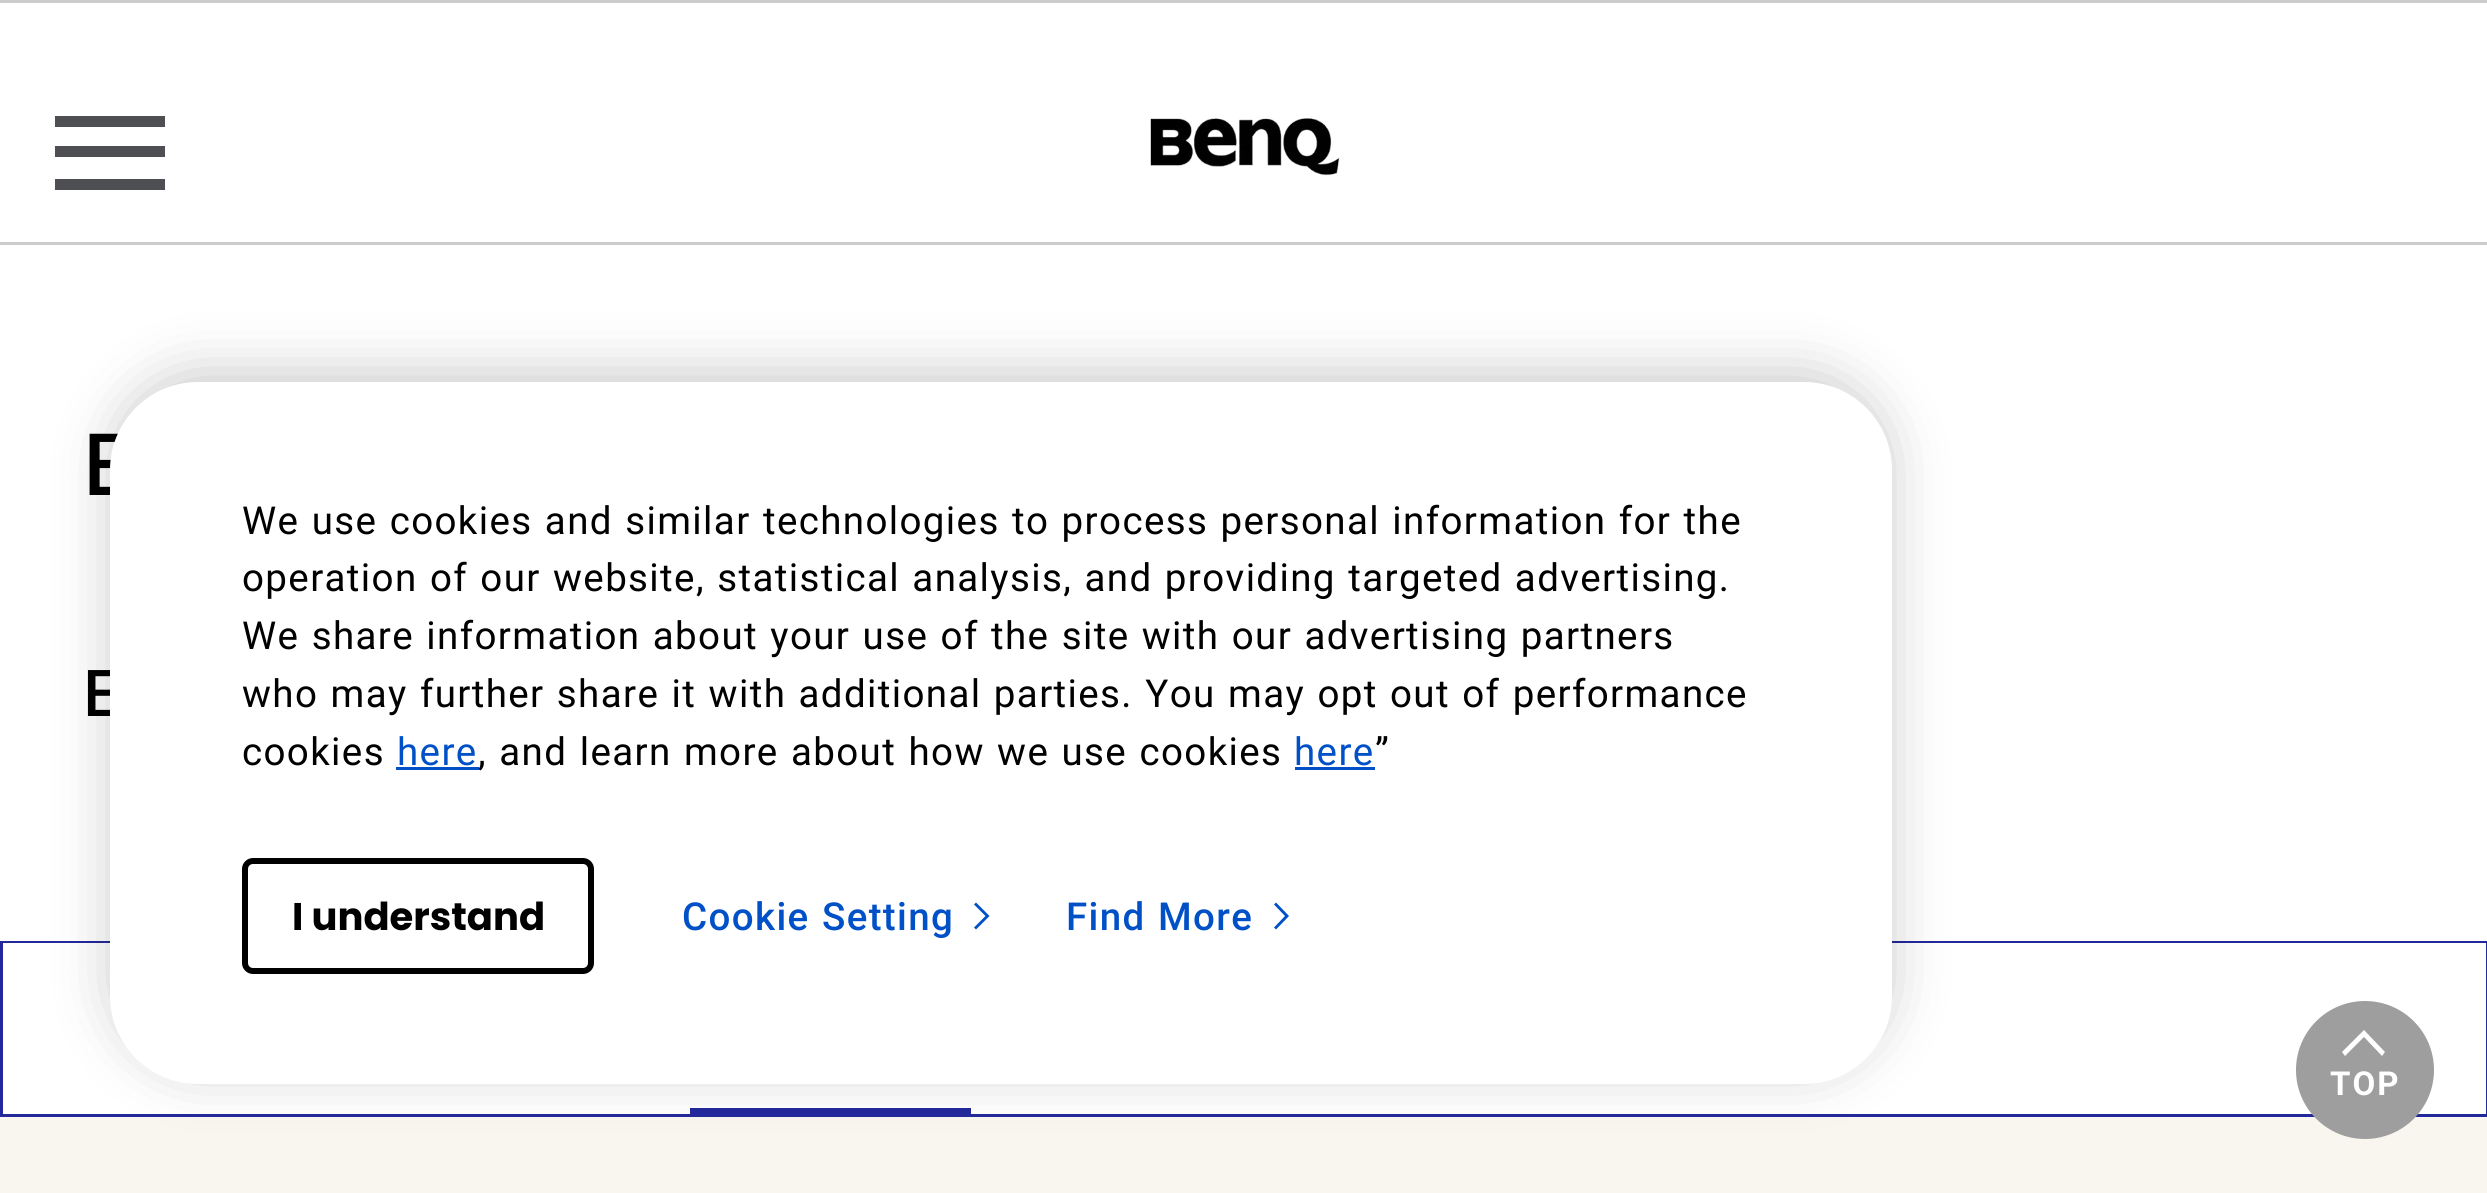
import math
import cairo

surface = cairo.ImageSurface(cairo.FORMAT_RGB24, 2487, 1193)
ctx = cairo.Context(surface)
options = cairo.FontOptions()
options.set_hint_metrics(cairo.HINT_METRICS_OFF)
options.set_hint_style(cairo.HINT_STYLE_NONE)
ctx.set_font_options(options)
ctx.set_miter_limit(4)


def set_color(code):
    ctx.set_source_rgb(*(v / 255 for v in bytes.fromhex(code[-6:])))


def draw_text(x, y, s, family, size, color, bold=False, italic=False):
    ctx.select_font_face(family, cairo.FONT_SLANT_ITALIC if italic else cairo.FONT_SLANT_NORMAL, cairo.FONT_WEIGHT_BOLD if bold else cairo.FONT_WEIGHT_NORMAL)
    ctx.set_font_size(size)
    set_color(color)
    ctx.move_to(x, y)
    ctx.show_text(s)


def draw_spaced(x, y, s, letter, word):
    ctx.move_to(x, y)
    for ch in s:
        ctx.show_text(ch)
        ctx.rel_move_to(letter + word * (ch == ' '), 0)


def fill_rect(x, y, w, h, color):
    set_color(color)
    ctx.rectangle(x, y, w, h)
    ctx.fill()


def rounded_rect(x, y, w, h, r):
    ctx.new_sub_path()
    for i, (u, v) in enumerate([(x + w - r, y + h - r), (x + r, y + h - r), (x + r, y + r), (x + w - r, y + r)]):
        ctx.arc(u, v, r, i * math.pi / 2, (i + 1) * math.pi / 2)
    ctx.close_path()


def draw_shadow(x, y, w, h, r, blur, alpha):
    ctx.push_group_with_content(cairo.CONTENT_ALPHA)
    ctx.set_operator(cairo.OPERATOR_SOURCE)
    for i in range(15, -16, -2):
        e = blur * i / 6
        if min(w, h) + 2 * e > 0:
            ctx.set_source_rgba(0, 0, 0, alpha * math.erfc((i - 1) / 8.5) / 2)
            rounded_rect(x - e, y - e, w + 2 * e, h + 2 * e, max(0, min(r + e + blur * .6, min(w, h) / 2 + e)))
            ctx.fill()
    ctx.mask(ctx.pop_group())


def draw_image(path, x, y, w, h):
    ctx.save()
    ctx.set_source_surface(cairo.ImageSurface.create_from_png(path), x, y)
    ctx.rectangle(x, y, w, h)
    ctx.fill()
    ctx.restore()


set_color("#ffffff")
ctx.paint()
fill_rect(0, 0, 2487, 3, "#cccccc")
fill_rect(0, 242, 2487, 3, "#cccccc")
fill_rect(55, 116, 110, 11, "#4d4f52")
fill_rect(55, 146, 110, 11, "#4d4f52")
fill_rect(55, 179, 110, 11, "#4d4f52")
draw_image("assets/img1.png", 1150, 118, 190, 58)
ctx.select_font_face("Poppins Medium")
ctx.set_font_size(88)
set_color("#000000")
draw_spaced(83, 495, "E", 1.38, 1.4)
ctx.set_font_size(66)
draw_spaced(83, 716, "E", 1.38, 1.4)
ctx.rectangle(1.5, 942.5, 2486, 173)
set_color("#23299b")
ctx.set_line_width(3)
ctx.stroke()
fill_rect(3, 943, 2483, 1, "#ffffff")
fill_rect(690, 1108, 281, 6, "#23299b")
fill_rect(0, 1117, 2487, 76, "#f9f6ef")
set_color("#000000")
draw_shadow(110, 371, 1782, 702, 88, 27.5, 0.2)
set_color("#ffffff")
rounded_rect(110, 382, 1782, 702, 88)
ctx.fill()
ctx.select_font_face("Roboto")
ctx.set_font_size(38.5)
set_color("#000000")
draw_spaced(242, 534, "We use cookies and similar technologies to process personal information for the", 1.38, 1.4)
draw_spaced(242, 591, "operation of our website, statistical analysis, and providing targeted advertising.", 1.38, 1.4)
draw_spaced(242, 649, "We share information about your use of the site with our advertising partners", 1.38, 1.4)
draw_spaced(242, 707, "who may further share it with additional parties. You may opt out of performance", 1.38, 1.4)
draw_spaced(242, 765, "cookies", 1.38, 0)
set_color("#0050c7")
draw_spaced(397, 765, "here", 1.38, 0)
fill_rect(396, 767, 83, 3, "#0050c7")
set_color("#000000")
draw_spaced(478, 765, ", and learn more about how we use cookies", 1.38, 1.4)
set_color("#0050c7")
draw_spaced(1294, 765, "here", 1.38, 0)
fill_rect(1295, 767, 80, 3, "#0050c7")
set_color("#000000")
draw_spaced(1375, 765, "”", 1.38, 0)
rounded_rect(245, 861, 346, 110, 8)
ctx.set_line_width(6)
ctx.stroke()
draw_text(292, 930, "I understand", "Poppins", 38.5, "#000000", bold=True)
ctx.select_font_face("Roboto Medium")
set_color("#0050c7")
draw_spaced(682, 930, "Cookie Setting", 1.38, 1.4)
ctx.new_path()
ctx.move_to(976, 929.5)
ctx.line_to(989.5, 916)
ctx.line_to(976, 902.5)
ctx.line_to(974, 904.5)
ctx.line_to(985.5, 916)
ctx.line_to(974, 927.5)
ctx.close_path()
ctx.fill()
draw_spaced(1066, 930, "Find More", 1.38, 1.4)
ctx.new_path()
ctx.move_to(1276, 929.5)
ctx.line_to(1289, 916)
ctx.line_to(1276, 902.5)
ctx.line_to(1274, 904.5)
ctx.line_to(1285, 916)
ctx.line_to(1274, 927.5)
ctx.close_path()
ctx.fill()
set_color("#9e9e9e")
ctx.arc(2365, 1070, 69, 0, 2 * math.pi)
ctx.fill()
set_color("#ffffff")
ctx.set_fill_rule(cairo.FILL_RULE_EVEN_ODD)
ctx.new_path()
ctx.move_to(2364, 1037)
ctx.line_to(2345, 1056)
ctx.line_to(2342, 1052)
ctx.line_to(2364, 1030)
ctx.line_to(2385, 1052)
ctx.line_to(2382, 1056)
ctx.close_path()
ctx.fill()
ctx.select_font_face("Roboto", cairo.FONT_SLANT_NORMAL, cairo.FONT_WEIGHT_BOLD)
ctx.set_font_size(33)
draw_spaced(2330, 1095, "TOP", 2, 0)
surface.write_to_png("output.png")
